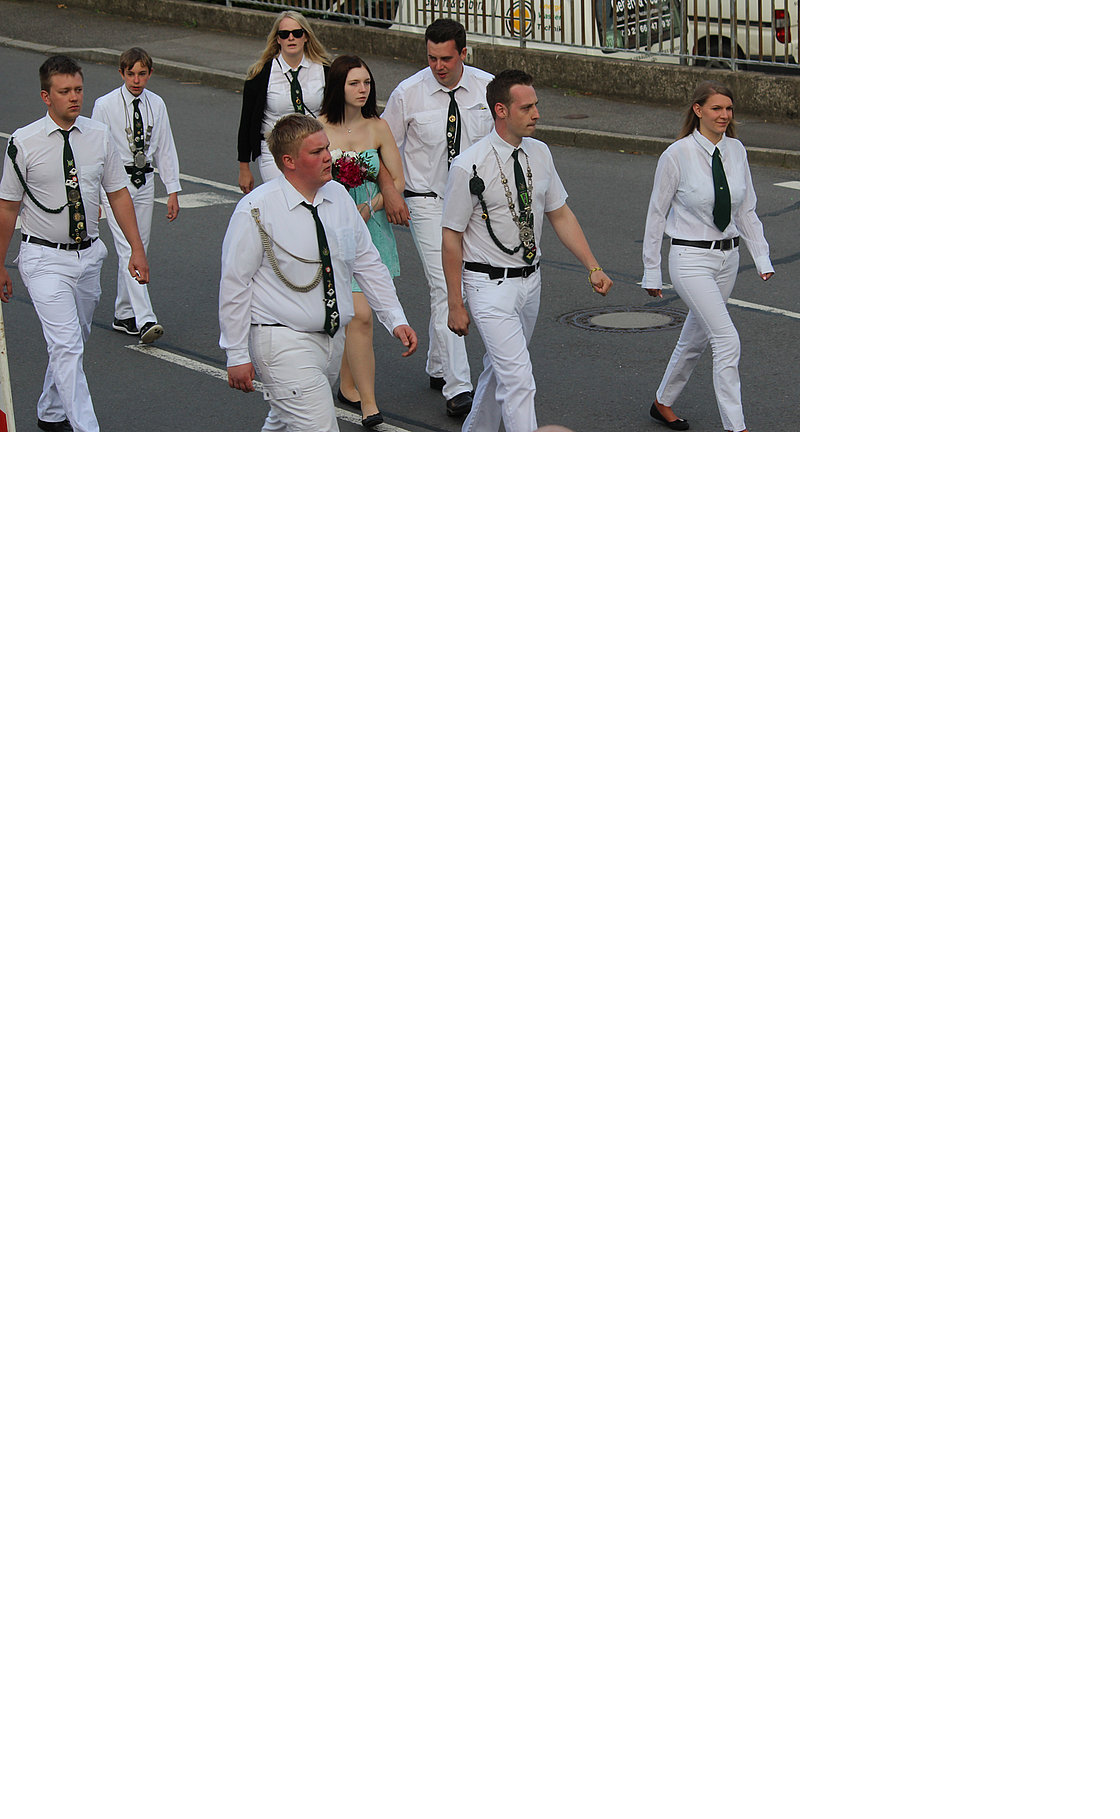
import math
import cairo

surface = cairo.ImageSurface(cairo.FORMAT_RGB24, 1120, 1819)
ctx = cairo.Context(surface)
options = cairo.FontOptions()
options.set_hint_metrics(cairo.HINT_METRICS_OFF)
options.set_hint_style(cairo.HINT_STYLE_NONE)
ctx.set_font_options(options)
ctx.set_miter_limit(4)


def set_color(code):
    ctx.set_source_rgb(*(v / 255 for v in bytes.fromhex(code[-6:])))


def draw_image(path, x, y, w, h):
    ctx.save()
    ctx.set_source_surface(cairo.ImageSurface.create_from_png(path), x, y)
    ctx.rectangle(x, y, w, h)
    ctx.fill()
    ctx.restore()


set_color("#ffffff")
ctx.paint()
draw_image("assets/img1.png", 0, 0, 800, 432)
surface.write_to_png("output.png")
